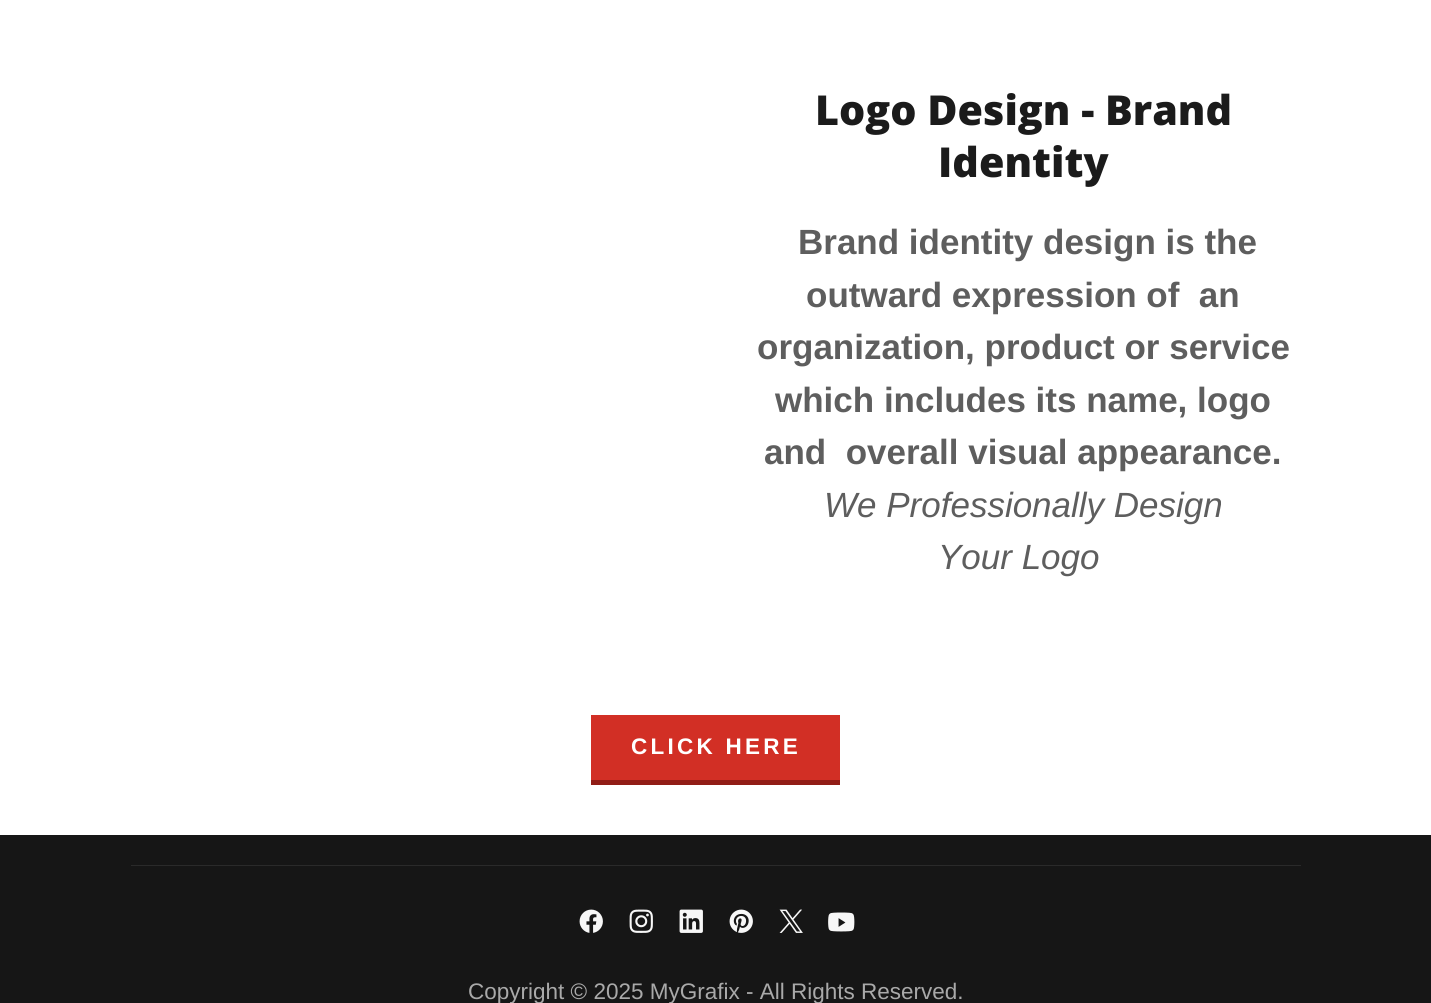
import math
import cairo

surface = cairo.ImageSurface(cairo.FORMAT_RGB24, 1431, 1003)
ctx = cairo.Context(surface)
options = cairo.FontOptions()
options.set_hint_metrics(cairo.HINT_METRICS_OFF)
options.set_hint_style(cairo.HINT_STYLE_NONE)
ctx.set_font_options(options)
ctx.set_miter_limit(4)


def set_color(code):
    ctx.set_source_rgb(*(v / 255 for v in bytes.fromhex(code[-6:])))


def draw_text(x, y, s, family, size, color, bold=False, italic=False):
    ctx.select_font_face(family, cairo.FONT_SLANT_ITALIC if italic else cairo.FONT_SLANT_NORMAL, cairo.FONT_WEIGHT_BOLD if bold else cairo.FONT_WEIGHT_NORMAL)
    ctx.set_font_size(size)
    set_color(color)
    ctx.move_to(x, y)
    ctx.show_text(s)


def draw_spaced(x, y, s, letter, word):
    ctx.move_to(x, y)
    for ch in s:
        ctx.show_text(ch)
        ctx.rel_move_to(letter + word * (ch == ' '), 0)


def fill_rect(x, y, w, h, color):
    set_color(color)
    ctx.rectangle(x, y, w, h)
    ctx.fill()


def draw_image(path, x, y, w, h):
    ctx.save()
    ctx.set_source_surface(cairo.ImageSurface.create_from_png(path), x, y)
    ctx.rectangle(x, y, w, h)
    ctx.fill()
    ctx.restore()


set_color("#161616")
ctx.paint()
fill_rect(0, 0, 1431, 4, "#ffffff")
fill_rect(0, 4, 1431, 831, "#ffffff")
draw_text(815, 125, "Logo Design - Brand", "Open Sans ExtraBold", 41.25, "#1b1b1b")
draw_text(938, 177, "Identity", "Open Sans ExtraBold", 41.25, "#1b1b1b")
draw_text(798, 254, "Brand identity design is the", "Liberation Sans", 35, "#5e5e5e", bold=True)
draw_text(806, 307, "outward expression of  an", "Liberation Sans", 35, "#5e5e5e", bold=True)
draw_text(757, 359, "organization, product or service", "Liberation Sans", 35, "#5e5e5e", bold=True)
draw_text(775, 412, "which includes its name, logo", "Liberation Sans", 35, "#5e5e5e", bold=True)
draw_text(764, 464, "and  overall visual appearance.", "Liberation Sans", 35, "#5e5e5e", bold=True)
draw_text(824, 517, "We Professionally Design", "Liberation Sans", 35, "#5e5e5e", italic=True)
draw_text(938, 569, "Your Logo", "Liberation Sans", 35, "#5e5e5e", italic=True)
fill_rect(591, 715, 249, 65, "#d22f25")
fill_rect(591, 780, 249, 5, "#911d16")
ctx.select_font_face("Liberation Sans", cairo.FONT_SLANT_NORMAL, cairo.FONT_WEIGHT_BOLD)
ctx.set_font_size(22.5)
set_color("#ffffff")
draw_spaced(631, 754, "CLICK HERE", 3.25, 0)
fill_rect(131, 865, 1170, 1, "#2a2a2a")
draw_image("assets/img1.png", 579, 909, 24, 24)
draw_image("assets/img2.png", 629, 909, 24, 24)
draw_image("assets/img3.png", 679, 909, 24, 24)
draw_image("assets/img4.png", 729, 909, 24, 24)
draw_image("assets/img5.png", 779, 909, 24, 24)
draw_image("assets/img6.png", 828, 912, 27, 20)
draw_text(468, 999, "Copyright © 2025 MyGrafix - All Rights Reserved.", "Liberation Sans", 22.5, "#a9a9a9")
surface.write_to_png("output.png")
